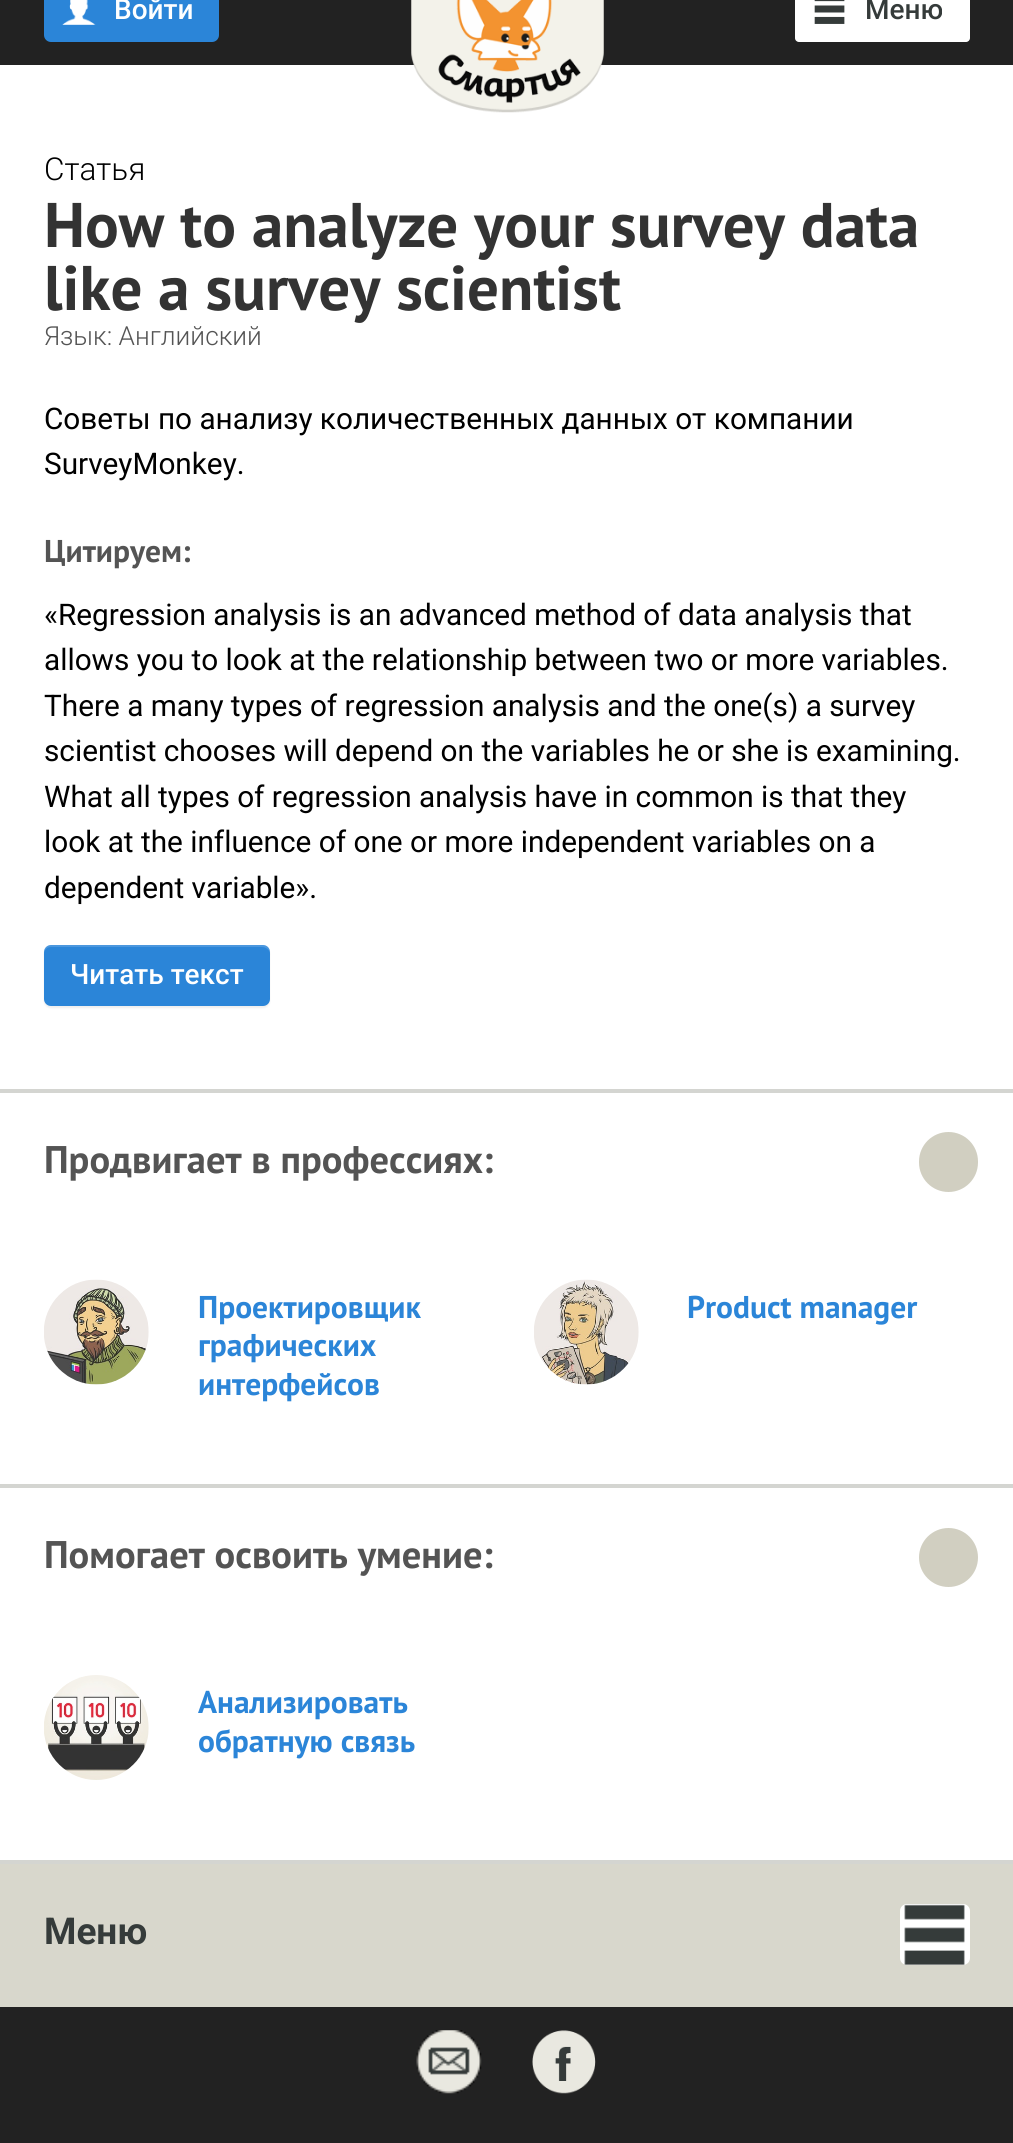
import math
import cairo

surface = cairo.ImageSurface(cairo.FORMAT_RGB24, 1013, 2143)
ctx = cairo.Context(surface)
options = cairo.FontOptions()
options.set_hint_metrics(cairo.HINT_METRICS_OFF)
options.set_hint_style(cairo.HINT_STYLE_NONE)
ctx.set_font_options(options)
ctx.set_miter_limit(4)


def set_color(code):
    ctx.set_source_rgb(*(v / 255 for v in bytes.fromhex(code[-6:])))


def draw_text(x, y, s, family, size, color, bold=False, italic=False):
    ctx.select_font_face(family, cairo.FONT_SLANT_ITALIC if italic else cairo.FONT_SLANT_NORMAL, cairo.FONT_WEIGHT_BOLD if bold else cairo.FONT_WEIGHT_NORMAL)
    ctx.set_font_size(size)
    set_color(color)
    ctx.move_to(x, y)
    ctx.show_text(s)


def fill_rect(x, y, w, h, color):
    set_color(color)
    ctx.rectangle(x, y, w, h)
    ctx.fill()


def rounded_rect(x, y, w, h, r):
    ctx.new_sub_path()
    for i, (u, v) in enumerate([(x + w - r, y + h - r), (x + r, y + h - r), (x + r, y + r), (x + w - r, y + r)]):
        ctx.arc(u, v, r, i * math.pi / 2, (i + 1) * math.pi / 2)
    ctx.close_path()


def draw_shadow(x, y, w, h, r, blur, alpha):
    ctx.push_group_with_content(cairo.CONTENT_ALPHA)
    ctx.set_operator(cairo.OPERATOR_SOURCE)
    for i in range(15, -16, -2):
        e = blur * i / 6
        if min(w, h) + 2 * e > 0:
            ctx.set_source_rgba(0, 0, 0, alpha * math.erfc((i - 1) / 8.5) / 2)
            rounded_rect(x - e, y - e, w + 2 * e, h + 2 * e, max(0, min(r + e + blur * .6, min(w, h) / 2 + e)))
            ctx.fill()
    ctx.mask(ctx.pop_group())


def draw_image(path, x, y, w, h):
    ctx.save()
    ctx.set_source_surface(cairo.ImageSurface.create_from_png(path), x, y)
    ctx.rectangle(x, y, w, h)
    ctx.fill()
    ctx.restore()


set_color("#ffffff")
ctx.paint()
fill_rect(0, 0, 1013, 65, "#222222")
set_color("#2b85d8")
rounded_rect(44, -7, 175, 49, 7)
ctx.fill()
draw_image("assets/img1.png", 62, 0, 34, 25)
draw_text(114, 19, "Войти", "Roboto Medium", 28, "#ffffff")
draw_image("assets/img2.png", 411, 0, 193, 113)
rounded_rect(795, -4, 175, 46, 4)
ctx.fill()
draw_image("assets/img3.png", 814, 0, 31, 24)
draw_text(865, 19, "Меню", "Roboto Medium", 28, "#353b3a")
draw_text(44, 180, "Статья", "Roboto Light", 31.5, "#000000")
draw_text(44, 247, "How to analyze your survey data", "PT Sans", 63, "#333333", bold=True)
draw_text(44, 310, "like a survey scientist", "PT Sans", 63, "#333333", bold=True)
draw_text(44, 345, "Язык: Английский", "Roboto Light", 26.25, "#545454")
draw_text(44, 429, "Советы по анализу количественных данных от компании", "Roboto", 29.75, "#000000")
draw_text(44, 474, "SurveyMonkey.", "Roboto", 29.75, "#000000")
draw_text(44, 562, "Цитируем:", "PT Sans", 31.5, "#545454", bold=True)
draw_text(44, 625, "«Regression analysis is an advanced method of data analysis that", "Roboto", 29.75, "#000000")
draw_text(44, 670, "allows you to look at the relationship between two or more variables.", "Roboto", 29.75, "#000000")
draw_text(44, 716, "There a many types of regression analysis and the one(s) a survey", "Roboto", 29.75, "#000000")
draw_text(44, 761, "scientist chooses will depend on the variables he or she is examining.", "Roboto", 29.75, "#000000")
draw_text(44, 807, "What all types of regression analysis have in common is that they", "Roboto", 29.75, "#000000")
draw_text(44, 852, "look at the influence of one or more independent variables on a", "Roboto", 29.75, "#000000")
draw_text(44, 898, "dependent variable».", "Roboto", 29.75, "#000000")
set_color("#000000")
draw_shadow(44, 947, 226, 61, 7, 1, 0.07)
set_color("#2b85d8")
rounded_rect(44, 945, 226, 61, 7)
ctx.fill()
ctx.set_source_rgba(1, 1, 1, 0.15)
ctx.new_path()
ctx.move_to(51, 947)
ctx.line_to(262, 947)
ctx.curve_to(266, 947, 270, 950, 270, 954)
ctx.line_to(270, 952)
ctx.curve_to(270, 948, 267, 945, 263, 945)
ctx.line_to(51, 945)
ctx.curve_to(47, 945, 44, 948, 44, 952)
ctx.line_to(44, 954)
ctx.curve_to(44, 950, 47, 947, 51, 947)
ctx.close_path()
ctx.fill()
draw_text(70, 984, "Читать текст", "Roboto Medium", 28, "#ffffff")
fill_rect(0, 1089, 1013, 4, "#d4d5d1")
fill_rect(0, 1484, 1013, 4, "#d4d5d1")
draw_text(44, 1173, "Продвигает в профессиях:", "PT Sans", 38.5, "#545454", bold=True)
set_color("#d1cfc1")
rounded_rect(919, 1132, 59, 60, 29.5)
ctx.fill()
draw_image("assets/img4.png", 44, 1279, 105, 106)
draw_text(198, 1318, "Проектировщик", "PT Sans", 31.5, "#2b85d8", bold=True)
draw_text(198, 1356, "графических", "PT Sans", 31.5, "#2b85d8", bold=True)
draw_text(198, 1395, "интерфейсов", "PT Sans", 31.5, "#2b85d8", bold=True)
draw_image("assets/img5.png", 534, 1279, 105, 106)
draw_text(687, 1318, "Product manager", "PT Sans", 31.5, "#2b85d8", bold=True)
fill_rect(0, 1860, 1013, 4, "#d4d5d1")
draw_text(44, 1568, "Помогает освоить умение:", "PT Sans", 38.5, "#545454", bold=True)
set_color("#d1cfc1")
ctx.new_path()
ctx.arc(948.5, 1557.5, 29.5, 0, 2 * math.pi)
ctx.fill()
draw_image("assets/img6.png", 44, 1675, 105, 105)
draw_text(198, 1713, "Анализировать", "PT Sans", 31.5, "#2b85d8", bold=True)
draw_text(198, 1752, "обратную связь", "PT Sans", 31.5, "#2b85d8", bold=True)
fill_rect(0, 1864, 1013, 143, "#d8d7cc")
draw_text(44, 1944, "Меню", "Roboto", 37, "#353b3a", bold=True)
set_color("#ffffff")
rounded_rect(900, 1904, 70, 61, 7)
ctx.fill()
draw_image("assets/img7.png", 904, 1904, 61, 61)
fill_rect(0, 2007, 1013, 136, "#222222")
draw_image("assets/img8.png", 416, 2030, 66, 64)
draw_image("assets/img9.png", 532, 2030, 64, 64)
surface.write_to_png("output.png")
